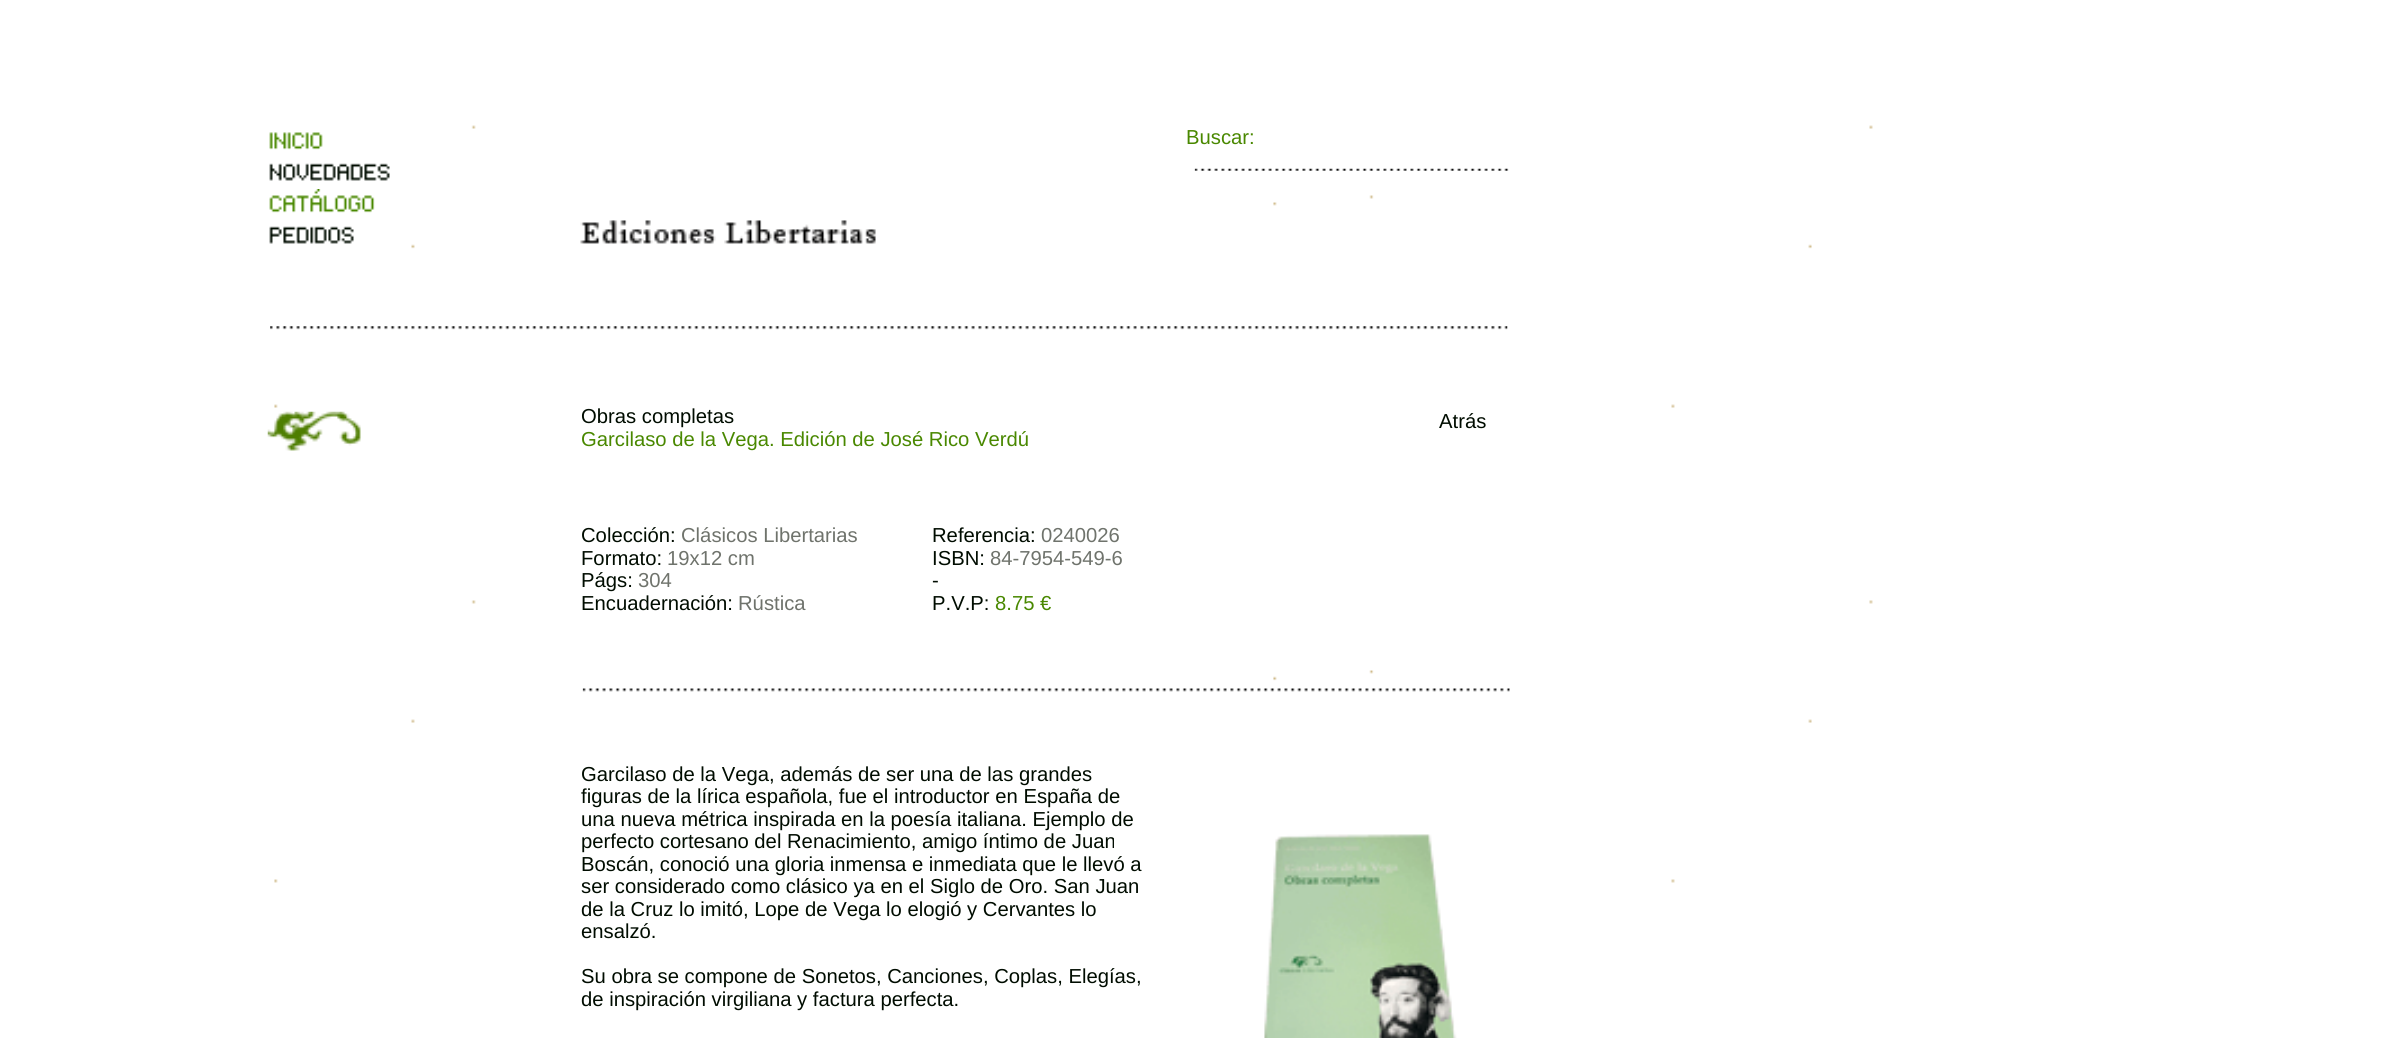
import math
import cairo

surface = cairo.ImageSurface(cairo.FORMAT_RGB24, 2403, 1038)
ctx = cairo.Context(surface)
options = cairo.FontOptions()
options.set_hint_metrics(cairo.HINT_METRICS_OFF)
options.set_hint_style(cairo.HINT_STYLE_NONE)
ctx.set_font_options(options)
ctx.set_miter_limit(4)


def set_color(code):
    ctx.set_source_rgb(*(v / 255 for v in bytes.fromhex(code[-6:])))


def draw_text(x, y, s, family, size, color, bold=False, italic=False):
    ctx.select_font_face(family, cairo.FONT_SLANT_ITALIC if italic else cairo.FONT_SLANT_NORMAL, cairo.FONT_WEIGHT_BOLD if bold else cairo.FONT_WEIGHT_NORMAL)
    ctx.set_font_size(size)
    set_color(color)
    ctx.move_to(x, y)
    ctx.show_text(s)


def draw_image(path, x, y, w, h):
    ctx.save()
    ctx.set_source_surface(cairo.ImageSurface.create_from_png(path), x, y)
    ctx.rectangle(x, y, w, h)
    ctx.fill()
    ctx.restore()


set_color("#ffffff")
ctx.paint()
draw_image("assets/img1.png", 274, 125, 1599, 758)
draw_image("assets/img2.png", 269, 132, 54, 18)
draw_text(1186, 144, "Buscar:", "Liberation Sans", 20.25, "#498800")
draw_image("assets/img3.png", 269, 163, 121, 18)
draw_image("assets/img4.png", 1194, 168, 315, 3)
draw_image("assets/img5.png", 269, 189, 106, 24)
draw_image("assets/img6.png", 269, 226, 85, 18)
draw_image("assets/img7.png", 580, 220, 296, 24)
draw_image("assets/img8.png", 270, 326, 1238, 4)
draw_image("assets/img9.png", 267, 411, 94, 40)
draw_text(581, 423, "Obras completas", "Liberation Sans", 20.25, "#000c00")
draw_text(581, 446, "Garcilaso de la Vega. Edición de José Rico Verdú", "Liberation Sans", 20.25, "#498800")
draw_text(581, 542, "Colección:", "Liberation Sans", 20.25, "#000c00")
draw_text(681, 542, "Clásicos Libertarias", "Liberation Sans", 20.25, "#6f736c")
draw_text(581, 565, "Formato:", "Liberation Sans", 20.25, "#000c00")
draw_text(667, 565, "19x12 cm", "Liberation Sans", 20.25, "#6f736c")
draw_text(581, 587, "Págs:", "Liberation Sans", 20.25, "#000c00")
draw_text(638, 587, "304", "Liberation Sans", 20.25, "#6f736c")
draw_text(581, 610, "Encuadernación:", "Liberation Sans", 20.25, "#000c00")
draw_text(738, 610, "Rústica", "Liberation Sans", 20.25, "#6f736c")
draw_text(932, 542, "Referencia:", "Liberation Sans", 20.25, "#000c00")
draw_text(1041, 542, "0240026", "Liberation Sans", 20.25, "#6f736c")
draw_text(932, 565, "ISBN:", "Liberation Sans", 20.25, "#000c00")
draw_text(990, 565, "84-7954-549-6", "Liberation Sans", 20.25, "#6f736c")
draw_text(932, 587, "-", "Liberation Sans", 20.25, "#000c00")
draw_text(932, 610, "P.V.P:", "Liberation Sans", 20.25, "#000c00")
draw_text(995, 610, "8.75 €", "Liberation Sans", 20.25, "#498800")
draw_image("assets/img10.png", 582, 688, 928, 4)
draw_text(581, 781, "Garcilaso de la Vega, además de ser una de las grandes", "Liberation Sans", 20.25, "#000c00")
draw_text(581, 803, "figuras de la lírica española, fue el introductor en España de", "Liberation Sans", 20.25, "#000c00")
draw_text(581, 826, "una nueva métrica inspirada en la poesía italiana. Ejemplo de", "Liberation Sans", 20.25, "#000c00")
draw_text(581, 848, "perfecto cortesano del Renacimiento, amigo íntimo de Juan", "Liberation Sans", 20.25, "#000c00")
draw_text(581, 871, "Boscán, conoció una gloria inmensa e inmediata que le llevó a", "Liberation Sans", 20.25, "#000c00")
draw_text(581, 893, "ser considerado como clásico ya en el Siglo de Oro. San Juan", "Liberation Sans", 20.25, "#000c00")
draw_text(581, 916, "de la Cruz lo imitó, Lope de Vega lo elogió y Cervantes lo", "Liberation Sans", 20.25, "#000c00")
draw_text(581, 938, "ensalzó.", "Liberation Sans", 20.25, "#000c00")
draw_text(581, 983, "Su obra se compone de Sonetos, Canciones, Coplas, Elegías,", "Liberation Sans", 20.25, "#000c00")
draw_text(581, 1006, "de inspiración virgiliana y factura perfecta.", "Liberation Sans", 20.25, "#000c00")
draw_image("assets/img11.png", 1264, 834, 193, 204)
draw_text(1439, 428, "Atrás", "Liberation Sans", 20.25, "#000c00")
surface.write_to_png("output.png")
